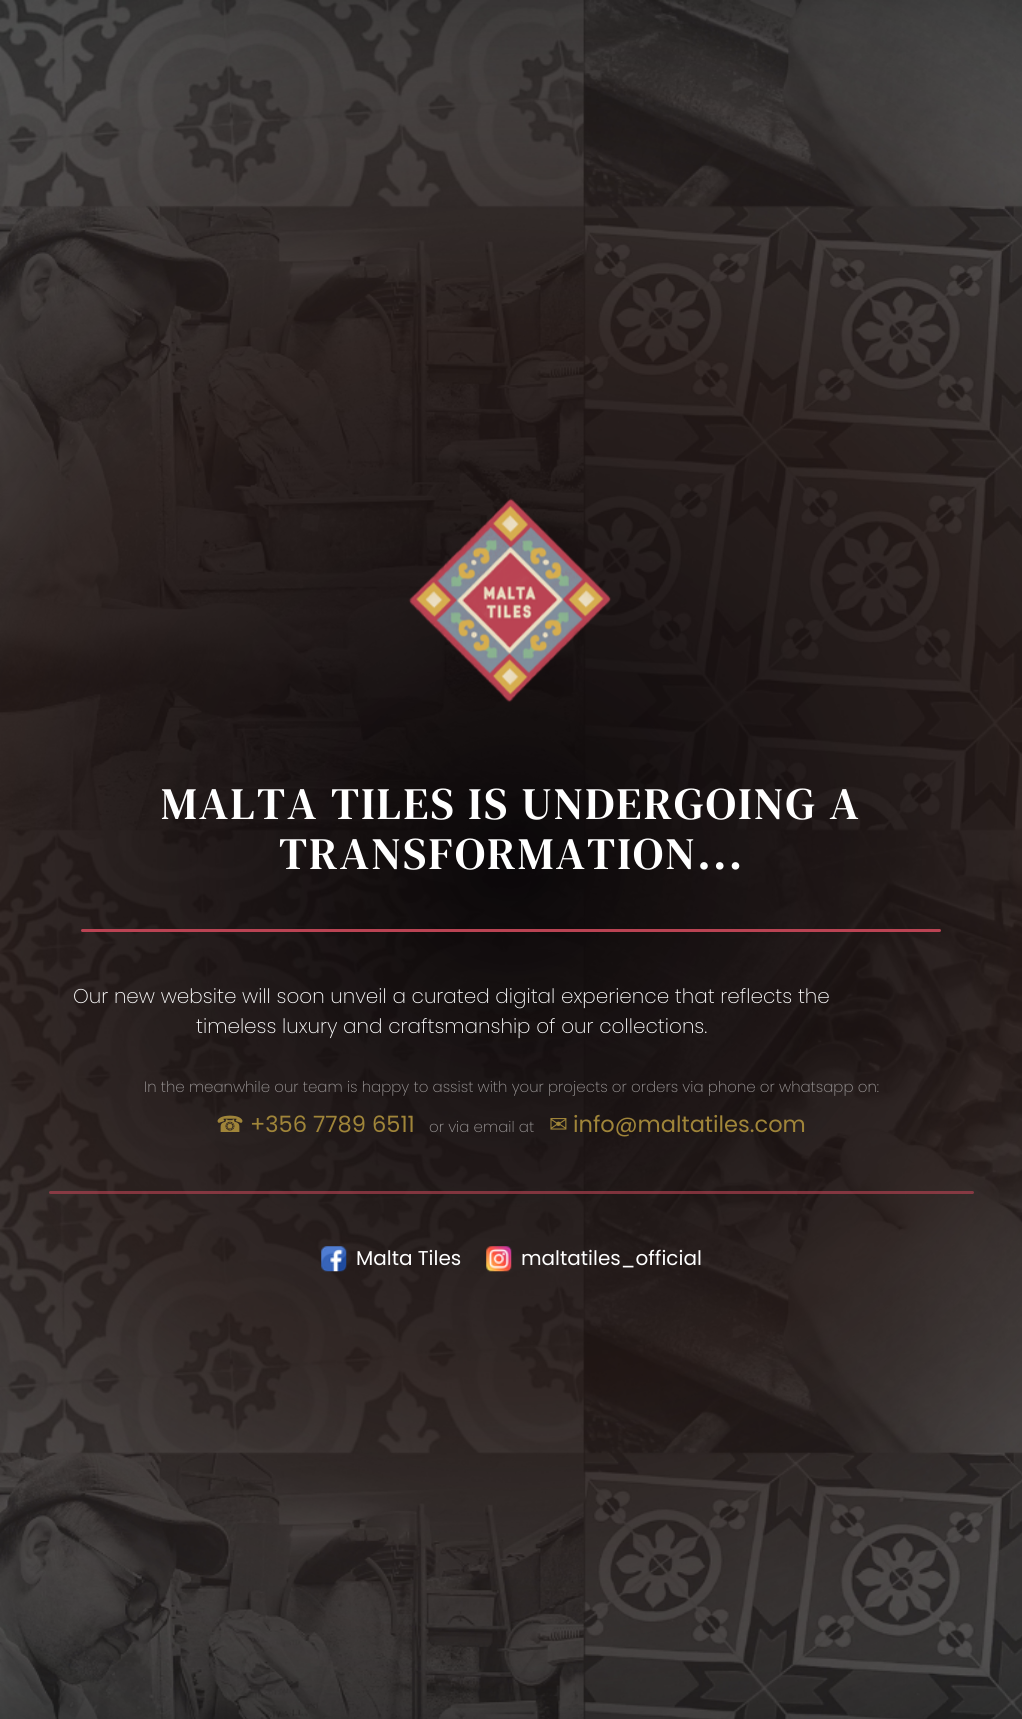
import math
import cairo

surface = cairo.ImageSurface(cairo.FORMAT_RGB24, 1022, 1719)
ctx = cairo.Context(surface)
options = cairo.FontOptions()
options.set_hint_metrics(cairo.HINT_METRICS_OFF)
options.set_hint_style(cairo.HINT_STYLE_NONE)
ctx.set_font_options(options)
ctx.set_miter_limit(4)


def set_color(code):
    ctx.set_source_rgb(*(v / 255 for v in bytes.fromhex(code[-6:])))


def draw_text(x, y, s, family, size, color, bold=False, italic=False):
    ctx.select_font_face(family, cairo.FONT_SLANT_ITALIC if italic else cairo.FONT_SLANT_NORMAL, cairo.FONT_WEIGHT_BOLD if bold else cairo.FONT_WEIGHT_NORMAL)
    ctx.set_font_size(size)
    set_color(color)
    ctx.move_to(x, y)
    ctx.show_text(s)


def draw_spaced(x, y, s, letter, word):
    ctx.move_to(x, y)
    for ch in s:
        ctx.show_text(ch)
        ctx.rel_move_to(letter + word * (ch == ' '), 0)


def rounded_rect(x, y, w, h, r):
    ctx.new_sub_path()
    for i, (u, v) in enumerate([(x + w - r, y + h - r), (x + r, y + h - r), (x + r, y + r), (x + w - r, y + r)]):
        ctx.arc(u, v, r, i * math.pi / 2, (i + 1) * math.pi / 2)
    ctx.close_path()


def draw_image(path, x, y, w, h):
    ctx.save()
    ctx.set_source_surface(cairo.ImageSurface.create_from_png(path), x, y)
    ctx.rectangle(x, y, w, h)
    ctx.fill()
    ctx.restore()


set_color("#ffffff")
ctx.paint()
draw_image("assets/img1.png", 0, 0, 1022, 1719)
draw_image("assets/img2.png", 408, 498, 204, 205)
ctx.select_font_face("DM Serif Text")
ctx.set_font_size(45)
set_color("#ffffff")
draw_spaced(161, 819, "MALTA TILES IS UNDERGOING A", 2.25, 0)
draw_spaced(279, 869, "TRANSFORMATION...", 2.25, 0)
set_color("#ba4353")
rounded_rect(81, 929, 860, 3, 1.5)
ctx.fill()
draw_text(73, 1003, "Our new website will soon unveil a curated digital experience that reflects the", "Poppins ExtraLight", 20, "#ffffff")
draw_text(196, 1033, "timeless luxury and craftsmanship of our collections.", "Poppins ExtraLight", 20, "#ffffff")
draw_text(144, 1092, "In the meanwhile our team is happy to assist with your projects or orders via phone or whatsapp on:", "Poppins ExtraLight", 15, "#9e9a9a")
draw_text(216, 1132, "☎", "DejaVu Sans", 22.5, "#a08539")
draw_text(250, 1132, "+356 7789 6511", "Poppins", 22.5, "#a08539")
draw_text(429, 1132, "or via email at", "Poppins ExtraLight", 15, "#9e9a9a")
draw_text(549, 1132, "✉", "DejaVu Sans", 22.5, "#a08539")
draw_text(573, 1132, "info@maltatiles.com", "Poppins", 22.5, "#a08539")
ctx.set_source_rgba(0.729, 0.263, 0.325, 0.62)
rounded_rect(49, 1191, 925, 3, 1.5)
ctx.fill()
draw_image("assets/img3.png", 321, 1246, 26, 26)
draw_text(356, 1265, "Malta Tiles", "Poppins", 20, "#ffffff")
draw_image("assets/img4.png", 486, 1246, 26, 26)
draw_text(521, 1265, "maltatiles_official", "Poppins", 20, "#ffffff")
surface.write_to_png("output.png")
